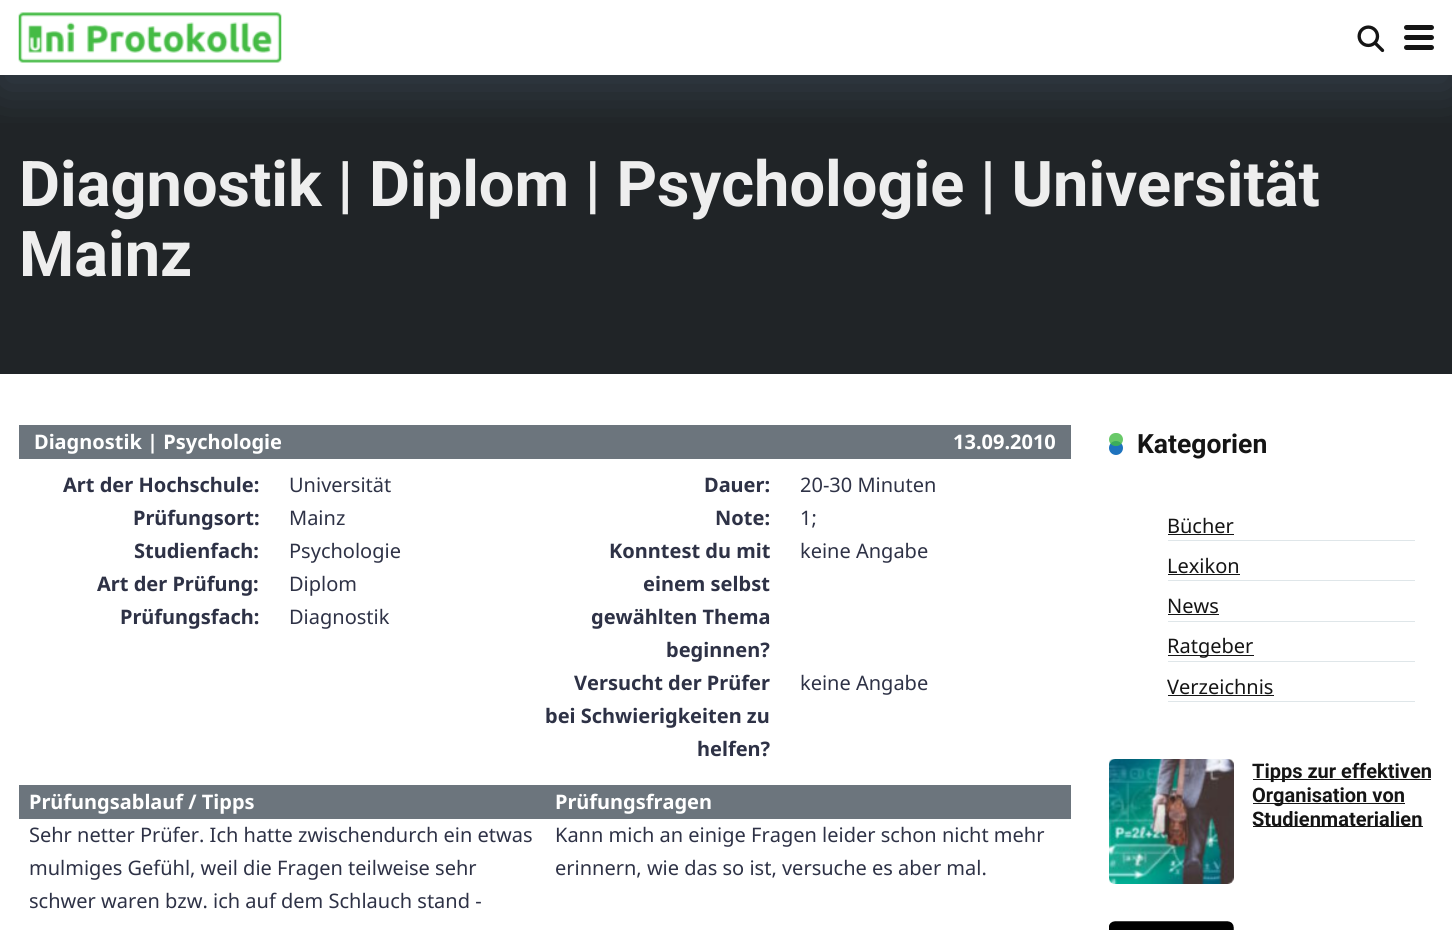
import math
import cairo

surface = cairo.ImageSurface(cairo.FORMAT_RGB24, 1452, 930)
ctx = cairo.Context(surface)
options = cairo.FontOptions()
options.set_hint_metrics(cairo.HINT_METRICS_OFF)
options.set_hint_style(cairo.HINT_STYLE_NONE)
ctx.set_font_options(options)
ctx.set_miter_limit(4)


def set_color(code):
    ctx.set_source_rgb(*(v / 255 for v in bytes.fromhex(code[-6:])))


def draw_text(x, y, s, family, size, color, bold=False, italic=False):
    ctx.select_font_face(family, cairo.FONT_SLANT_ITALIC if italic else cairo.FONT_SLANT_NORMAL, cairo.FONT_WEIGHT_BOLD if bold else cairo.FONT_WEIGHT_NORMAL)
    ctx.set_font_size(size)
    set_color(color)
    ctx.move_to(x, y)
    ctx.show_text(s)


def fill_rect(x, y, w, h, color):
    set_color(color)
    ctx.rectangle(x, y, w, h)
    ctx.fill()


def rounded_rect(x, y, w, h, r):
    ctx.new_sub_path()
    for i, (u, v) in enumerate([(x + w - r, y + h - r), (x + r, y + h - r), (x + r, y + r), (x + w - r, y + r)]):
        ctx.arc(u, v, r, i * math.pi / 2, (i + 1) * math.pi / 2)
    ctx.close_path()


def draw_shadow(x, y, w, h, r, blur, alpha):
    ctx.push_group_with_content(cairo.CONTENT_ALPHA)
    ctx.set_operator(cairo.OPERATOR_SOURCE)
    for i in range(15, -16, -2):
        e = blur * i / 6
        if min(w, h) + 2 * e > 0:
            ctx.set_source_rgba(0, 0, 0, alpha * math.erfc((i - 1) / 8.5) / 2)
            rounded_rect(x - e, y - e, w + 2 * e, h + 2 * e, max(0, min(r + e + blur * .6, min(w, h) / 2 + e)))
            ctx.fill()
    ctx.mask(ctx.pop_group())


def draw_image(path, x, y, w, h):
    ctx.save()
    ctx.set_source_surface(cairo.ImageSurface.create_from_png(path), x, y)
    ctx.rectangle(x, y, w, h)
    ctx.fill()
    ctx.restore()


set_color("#ffffff")
ctx.paint()
fill_rect(0, 75, 1452, 299, "#202427")
ctx.save()
ctx.rectangle(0, 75, 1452, 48)
ctx.clip()
set_color("#6d8dad")
draw_shadow(0, 13, 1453, 75, 0, 25, 0.25)
ctx.restore()
draw_image("assets/img1.png", 18, 12, 264, 51)
draw_image("assets/img2.png", 1357, 25, 28, 28)
set_color("#151515")
rounded_rect(1404, 25, 30, 5, 2.5)
ctx.fill()
rounded_rect(1404, 35, 30, 5, 2.5)
ctx.fill()
rounded_rect(1404, 45, 30, 5, 2.5)
ctx.fill()
draw_text(19, 206, "Diagnostik | Diplom | Psychologie | Universität", "Roboto", 63.1, "#eeeeee", bold=True)
draw_text(19, 276, "Mainz", "Roboto", 63.1, "#eeeeee", bold=True)
fill_rect(19, 425, 1052, 34, "#6c757d")
draw_text(34, 449, "Diagnostik | Psychologie", "Noto Sans", 20, "#ffffff", bold=True)
draw_text(953, 449, "13.09.2010", "Noto Sans", 20, "#ffffff", bold=True)
draw_text(63, 492, "Art der Hochschule:", "Noto Sans", 20, "#2e3246", bold=True)
draw_text(289, 492, "Universität", "Noto Sans", 20, "#2e3246")
draw_text(133, 525, "Prüfungsort:", "Noto Sans", 20, "#2e3246", bold=True)
draw_text(289, 525, "Mainz", "Noto Sans", 20, "#2e3246")
draw_text(134, 558, "Studienfach:", "Noto Sans", 20, "#2e3246", bold=True)
draw_text(289, 558, "Psychologie", "Noto Sans", 20, "#2e3246")
draw_text(97, 591, "Art der Prüfung:", "Noto Sans", 20, "#2e3246", bold=True)
draw_text(289, 591, "Diplom", "Noto Sans", 20, "#2e3246")
draw_text(120, 624, "Prüfungsfach:", "Noto Sans", 20, "#2e3246", bold=True)
draw_text(289, 624, "Diagnostik", "Noto Sans", 20, "#2e3246")
draw_text(704, 492, "Dauer:", "Noto Sans", 20, "#2e3246", bold=True)
draw_text(800, 492, "20-30 Minuten", "Noto Sans", 20, "#2e3246")
draw_text(715, 525, "Note:", "Noto Sans", 20, "#2e3246", bold=True)
draw_text(800, 525, "1;", "Noto Sans", 20, "#2e3246")
draw_text(609, 558, "Konntest du mit", "Noto Sans", 20, "#2e3246", bold=True)
draw_text(643, 591, "einem selbst", "Noto Sans", 20, "#2e3246", bold=True)
draw_text(591, 624, "gewählten Thema", "Noto Sans", 20, "#2e3246", bold=True)
draw_text(666, 657, "beginnen?", "Noto Sans", 20, "#2e3246", bold=True)
draw_text(800, 558, "keine Angabe", "Noto Sans", 20, "#2e3246")
draw_text(574, 690, "Versucht der Prüfer", "Noto Sans", 20, "#2e3246", bold=True)
draw_text(545, 723, "bei Schwierigkeiten zu", "Noto Sans", 20, "#2e3246", bold=True)
draw_text(697, 756, "helfen?", "Noto Sans", 20, "#2e3246", bold=True)
draw_text(800, 690, "keine Angabe", "Noto Sans", 20, "#2e3246")
fill_rect(19, 785, 1052, 34, "#6c757d")
draw_text(29, 809, "Prüfungsablauf / Tipps", "Noto Sans", 20, "#ffffff", bold=True)
draw_text(29, 842, "Sehr netter Prüfer. Ich hatte zwischendurch ein etwas", "Noto Sans", 20, "#2e3246")
draw_text(29, 875, "mulmiges Gefühl, weil die Fragen teilweise sehr", "Noto Sans", 20, "#2e3246")
draw_text(29, 908, "schwer waren bzw. ich auf dem Schlauch stand -", "Noto Sans", 20, "#2e3246")
draw_text(555, 809, "Prüfungsfragen", "Noto Sans", 20, "#ffffff", bold=True)
draw_text(555, 842, "Kann mich an einige Fragen leider schon nicht mehr", "Noto Sans", 20, "#2e3246")
draw_text(555, 875, "erinnern, wie das so ist, versuche es aber mal.", "Noto Sans", 20, "#2e3246")
set_color("#1e73be")
ctx.new_path()
ctx.arc(1116, 448, 7, 0, 2 * math.pi)
ctx.fill()
ctx.set_source_rgba(0.267, 0.733, 0.267, 0.8)
rounded_rect(1109, 433, 14, 13, 6.5)
ctx.fill()
draw_text(1137, 453, "Kategorien", "Roboto", 26.5, "#151515", bold=True)
fill_rect(1168, 540, 247, 1, "#dfe6e9")
draw_text(1167, 533, "Bücher", "Noto Sans", 20, "#151515")
fill_rect(1168, 534, 66, 1, "#151515")
fill_rect(1168, 580, 247, 1, "#dfe6e9")
draw_text(1167, 573, "Lexikon", "Noto Sans", 20, "#151515")
fill_rect(1168, 574, 72, 1, "#151515")
fill_rect(1168, 621, 247, 1, "#dfe6e9")
draw_text(1167, 613, "News", "Noto Sans", 20, "#151515")
fill_rect(1168, 614, 51, 1, "#151515")
fill_rect(1168, 661, 247, 1, "#dfe6e9")
fill_rect(1168, 655, 86, 1, "#151515")
draw_text(1167, 653, "Ratgeber", "Noto Sans", 20, "#151515")
fill_rect(1168, 701, 247, 1, "#dfe6e9")
draw_text(1167, 694, "Verzeichnis", "Noto Sans", 20, "#151515")
fill_rect(1168, 695, 106, 1, "#151515")
draw_image("assets/img3.png", 1109, 759, 125, 125)
fill_rect(1253, 779, 178, 1, "#151515")
draw_text(1252, 778, "Tipps zur effektiven", "Roboto", 20, "#151515", bold=True)
fill_rect(1253, 803, 152, 1, "#151515")
draw_text(1252, 802, "Organisation von", "Roboto", 20, "#151515", bold=True)
fill_rect(1253, 826, 170, 1, "#151515")
draw_text(1252, 826, "Studienmaterialien", "Roboto", 20, "#151515", bold=True)
draw_image("assets/img4.png", 1109, 921, 125, 9)
surface.write_to_png("output.png")
